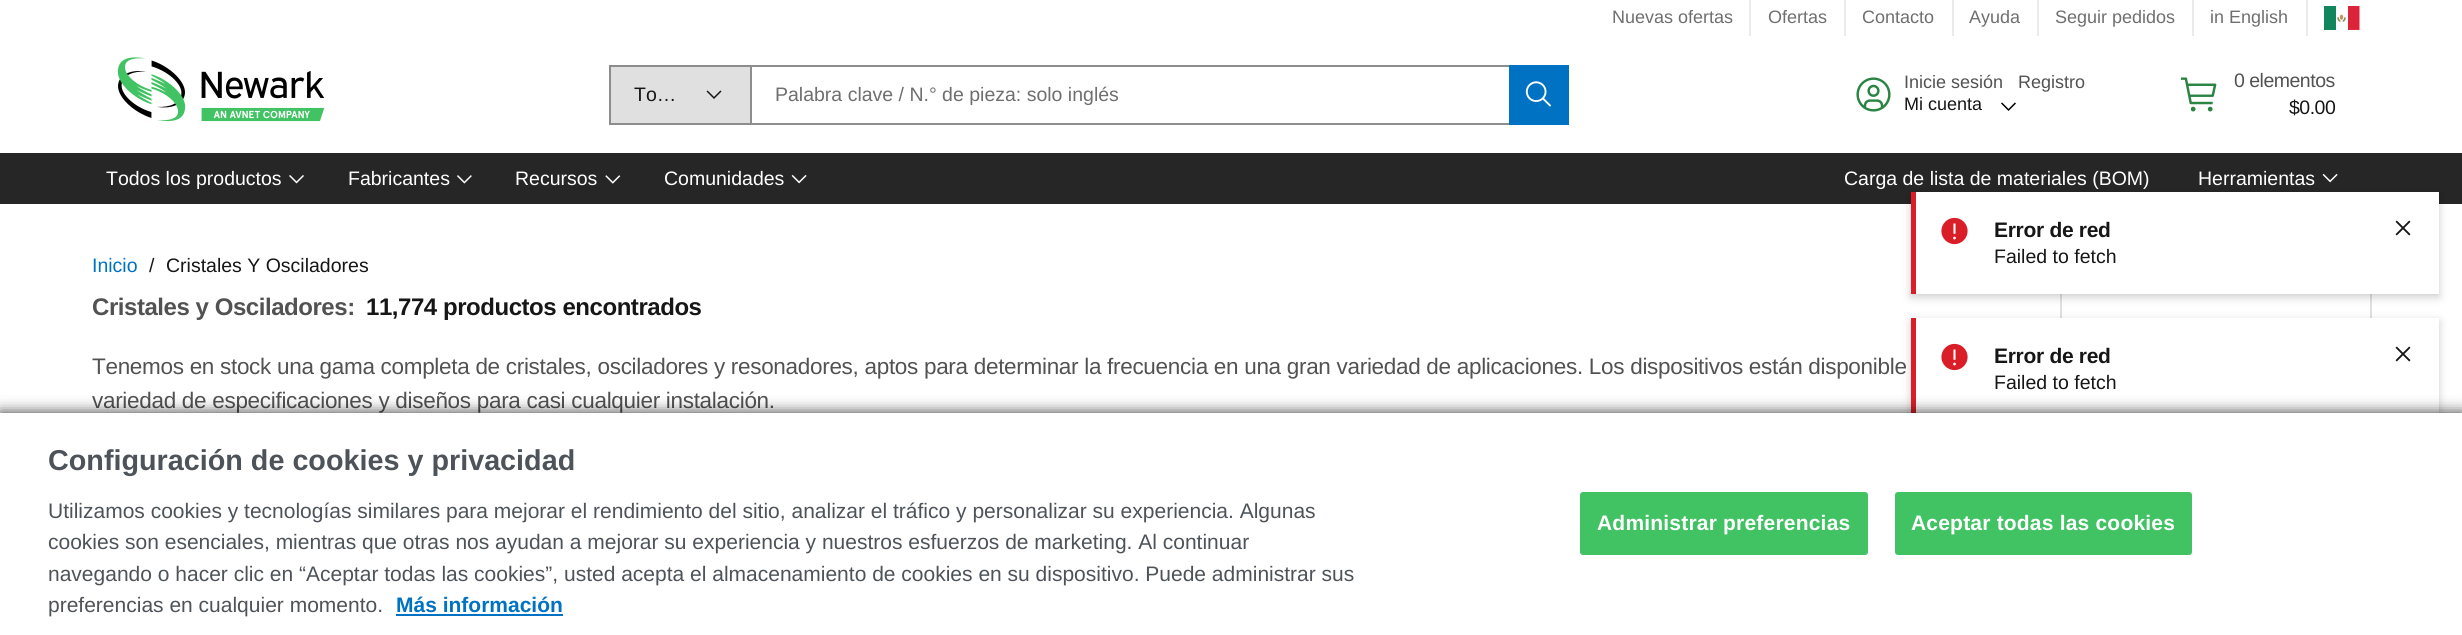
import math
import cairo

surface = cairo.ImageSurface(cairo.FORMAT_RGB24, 2462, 635)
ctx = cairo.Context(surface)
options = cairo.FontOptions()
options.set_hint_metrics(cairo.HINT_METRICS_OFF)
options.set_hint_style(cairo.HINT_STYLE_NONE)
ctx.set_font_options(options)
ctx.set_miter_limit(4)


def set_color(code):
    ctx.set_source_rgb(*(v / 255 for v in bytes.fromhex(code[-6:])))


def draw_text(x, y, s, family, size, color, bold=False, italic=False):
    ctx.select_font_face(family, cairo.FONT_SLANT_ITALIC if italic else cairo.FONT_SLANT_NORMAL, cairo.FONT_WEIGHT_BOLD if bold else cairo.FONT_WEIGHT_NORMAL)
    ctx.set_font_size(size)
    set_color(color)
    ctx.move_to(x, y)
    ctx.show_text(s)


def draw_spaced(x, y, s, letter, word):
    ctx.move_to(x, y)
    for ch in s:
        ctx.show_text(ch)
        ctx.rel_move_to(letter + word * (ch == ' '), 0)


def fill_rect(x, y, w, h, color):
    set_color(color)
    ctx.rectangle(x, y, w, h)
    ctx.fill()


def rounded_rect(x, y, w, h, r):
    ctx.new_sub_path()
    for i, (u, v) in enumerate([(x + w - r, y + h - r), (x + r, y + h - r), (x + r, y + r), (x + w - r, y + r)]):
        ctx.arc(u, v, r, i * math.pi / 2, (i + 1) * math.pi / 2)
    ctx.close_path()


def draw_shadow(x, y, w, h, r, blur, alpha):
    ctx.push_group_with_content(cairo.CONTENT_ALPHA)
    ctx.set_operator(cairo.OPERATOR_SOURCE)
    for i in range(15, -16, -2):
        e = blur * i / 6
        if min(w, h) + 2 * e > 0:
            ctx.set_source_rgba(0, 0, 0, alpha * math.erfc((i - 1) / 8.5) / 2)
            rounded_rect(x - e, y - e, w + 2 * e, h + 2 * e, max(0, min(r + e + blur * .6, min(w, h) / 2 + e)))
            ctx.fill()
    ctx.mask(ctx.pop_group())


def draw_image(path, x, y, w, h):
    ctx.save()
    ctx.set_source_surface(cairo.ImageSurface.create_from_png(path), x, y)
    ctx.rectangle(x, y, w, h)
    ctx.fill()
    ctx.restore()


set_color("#ffffff")
ctx.paint()
fill_rect(1749, 0, 2, 36, "#ebebeb")
draw_text(1612, 23, "Nuevas ofertas", "Liberation Sans", 18, "#6f6f6f")
fill_rect(1844, 0, 2, 36, "#ebebeb")
draw_text(1768, 23, "Ofertas", "Liberation Sans", 18, "#6f6f6f")
fill_rect(1952, 0, 2, 36, "#ebebeb")
draw_text(1862, 23, "Contacto", "Liberation Sans", 18, "#6f6f6f")
fill_rect(2037, 0, 2, 36, "#ebebeb")
draw_text(1969, 23, "Ayuda", "Liberation Sans", 18, "#6f6f6f")
fill_rect(2192, 0, 2, 36, "#ebebeb")
draw_text(2055, 23, "Seguir pedidos", "Liberation Sans", 18, "#6f6f6f")
fill_rect(2306, 0, 2, 36, "#ebebeb")
draw_text(2210, 23, "in English", "Liberation Sans", 18, "#6f6f6f")
draw_image("assets/img1.png", 2324, 6, 36, 24)
draw_image("assets/img2.png", 117, 57, 208, 65)
fill_rect(611, 67, 139, 56, "#e0e0e0")
fill_rect(609, 65, 900, 2, "#8d8d8d")
fill_rect(609, 123, 900, 2, "#8d8d8d")
fill_rect(609, 65, 2, 60, "#8d8d8d")
draw_text(634, 101, "To…", "Liberation Sans", 19.5, "#161616")
draw_image("assets/img3.png", 706, 90, 16, 9)
fill_rect(750, 65, 2, 60, "#8d8d8d")
draw_text(775, 101, "Palabra clave / N.° de pieza: solo inglés", "Liberation Sans", 19.5, "#6f6f6f")
fill_rect(1509, 65, 60, 60, "#0072c3")
draw_image("assets/img4.png", 1525, 81, 27, 26)
draw_image("assets/img5.png", 1856, 77, 35, 35)
draw_text(1904, 88, "Inicie sesión", "Liberation Sans", 18, "#525252")
draw_text(2018, 88, "Registro", "Liberation Sans", 18, "#525252")
draw_text(1904, 110, "Mi cuenta", "Liberation Sans", 18, "#161616")
draw_image("assets/img6.png", 2001, 102, 15, 9)
draw_image("assets/img7.png", 2181, 77, 36, 35)
ctx.set_font_size(19.5)
set_color("#525252")
draw_spaced(2234, 87, "0 elementos", -0.5, 0)
set_color("#161616")
draw_spaced(2289, 114, "$0.00", -0.5, 0)
fill_rect(0, 153, 2462, 51, "#262626")
draw_text(106, 185, "Todos los productos", "Liberation Sans", 19.5, "#ffffff")
draw_image("assets/img8.png", 289, 175, 15, 9)
draw_text(348, 185, "Fabricantes", "Liberation Sans", 19.5, "#ffffff")
draw_image("assets/img9.png", 457, 175, 15, 9)
draw_text(515, 185, "Recursos", "Liberation Sans", 19.5, "#ffffff")
draw_image("assets/img10.png", 605, 175, 16, 9)
draw_text(664, 185, "Comunidades", "Liberation Sans", 19.5, "#ffffff")
draw_image("assets/img11.png", 791, 174, 16, 10)
draw_text(1844, 185, "Carga de lista de materiales (BOM)", "Liberation Sans", 19.5, "#ffffff")
draw_text(2198, 185, "Herramientas", "Liberation Sans", 19.5, "#ffffff")
draw_image("assets/img12.png", 2322, 173, 16, 10)
draw_text(92, 272, "Inicio", "Liberation Sans", 19.5, "#0072c3")
draw_text(149, 272, "/", "Liberation Sans", 19.5, "#161616")
draw_text(166, 272, "Cristales Y Osciladores", "Liberation Sans", 19.5, "#161616")
ctx.select_font_face("Liberation Sans", cairo.FONT_SLANT_NORMAL, cairo.FONT_WEIGHT_BOLD)
ctx.set_font_size(24)
set_color("#525252")
draw_spaced(92, 315, "Cristales y Osciladores:", -0.45, 0)
set_color("#161616")
draw_spaced(366, 315, "11,774 productos encontrados", -0.45, 0)
ctx.select_font_face("Liberation Sans")
ctx.set_font_size(22.5)
set_color("#525252")
draw_spaced(92, 374, "Tenemos en stock una gama completa de cristales, osciladores y resonadores, aptos para determinar la frecuencia en una gran variedad de aplicaciones. Los dispositivos están disponible", -0.3, 0)
draw_spaced(92, 408, "variedad de especificaciones y diseños para casi cualquier instalación.", -0.3, 0)
ctx.rectangle(2061, 253, 310, 295)
set_color("#e0e0e0")
ctx.stroke()
set_color("#000000")
draw_shadow(1911, 195, 528, 102, 0, 4.5, 0.2)
fill_rect(1916, 192, 523, 102, "#ffffff")
fill_rect(1911, 192, 5, 102, "#da1e28")
draw_image("assets/img13.png", 1941, 217, 27, 28)
ctx.select_font_face("Liberation Sans", cairo.FONT_SLANT_NORMAL, cairo.FONT_WEIGHT_BOLD)
ctx.set_font_size(21)
set_color("#161616")
draw_spaced(1994, 237, "Error de red", -0.3, 0)
draw_text(1994, 263, "Failed to fetch", "Liberation Sans", 19.5, "#161616")
draw_image("assets/img14.png", 2395, 220, 16, 16)
set_color("#000000")
draw_shadow(1911, 321, 528, 102, 0, 4.5, 0.2)
fill_rect(1916, 318, 523, 95, "#ffffff")
fill_rect(1911, 318, 5, 102, "#da1e28")
draw_image("assets/img13.png", 1941, 343, 27, 28)
ctx.select_font_face("Liberation Sans", cairo.FONT_SLANT_NORMAL, cairo.FONT_WEIGHT_BOLD)
ctx.set_font_size(21)
set_color("#161616")
draw_spaced(1994, 363, "Error de red", -0.3, 0)
draw_text(1994, 389, "Failed to fetch", "Liberation Sans", 19.5, "#161616")
draw_image("assets/img14.png", 2395, 346, 16, 16)
set_color("#000000")
draw_shadow(0, 413, 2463, 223, 0, 7.5, 0.8)
fill_rect(0, 413, 2462, 222, "#ffffff")
draw_text(48, 470, "Configuración de cookies y privacidad", "Liberation Sans", 28.75, "#4d5358", bold=True)
draw_text(48, 518, "Utilizamos cookies y tecnologías similares para mejorar el rendimiento del sitio, analizar el tráfico y personalizar su experiencia. Algunas", "Liberation Sans", 21, "#4d5358")
draw_text(48, 549, "cookies son esenciales, mientras que otras nos ayudan a mejorar su experiencia y nuestros esfuerzos de marketing. Al continuar", "Liberation Sans", 21, "#4d5358")
draw_text(48, 581, "navegando o hacer clic en “Aceptar todas las cookies”, usted acepta el almacenamiento de cookies en su dispositivo. Puede administrar sus", "Liberation Sans", 21, "#4d5358")
draw_text(48, 612, "preferencias en cualquier momento.", "Liberation Sans", 21, "#4d5358")
draw_text(396, 612, "Más información", "Liberation Sans", 21, "#0072c3", bold=True)
fill_rect(396, 614, 167, 2, "#0072c3")
set_color("#41c363")
rounded_rect(1581, 493, 286, 61, 2)
ctx.fill_preserve()
ctx.stroke()
set_color("#ffffff")
draw_spaced(1597, 530, "Administrar preferencias", 0.2, 0)
set_color("#41c363")
rounded_rect(1896, 493, 295, 61, 2)
ctx.fill_preserve()
ctx.stroke()
set_color("#ffffff")
draw_spaced(1911, 530, "Aceptar todas las cookies", 0.2, 0)
surface.write_to_png("output.png")
